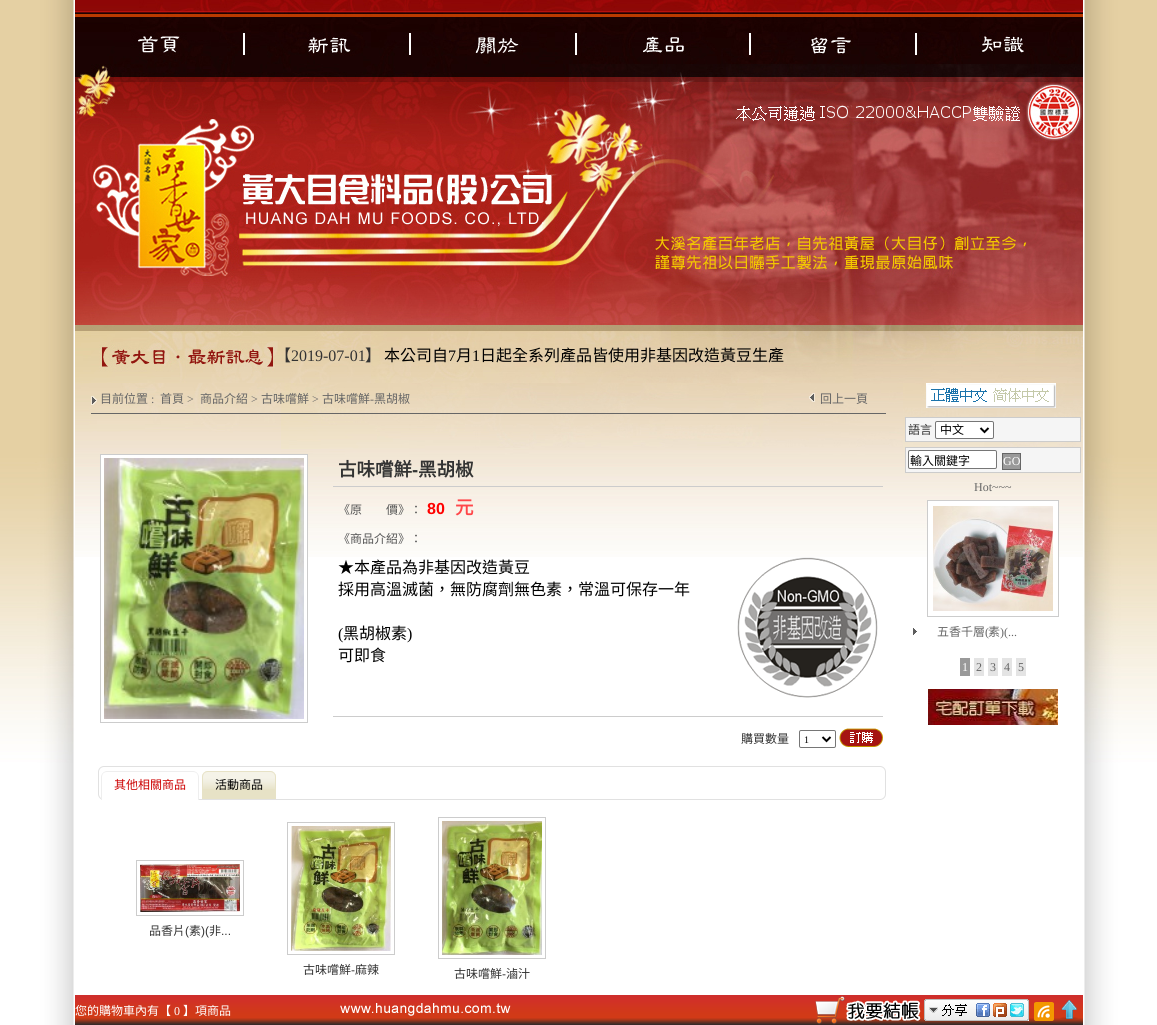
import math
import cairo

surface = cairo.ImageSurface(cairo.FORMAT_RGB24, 1157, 1025)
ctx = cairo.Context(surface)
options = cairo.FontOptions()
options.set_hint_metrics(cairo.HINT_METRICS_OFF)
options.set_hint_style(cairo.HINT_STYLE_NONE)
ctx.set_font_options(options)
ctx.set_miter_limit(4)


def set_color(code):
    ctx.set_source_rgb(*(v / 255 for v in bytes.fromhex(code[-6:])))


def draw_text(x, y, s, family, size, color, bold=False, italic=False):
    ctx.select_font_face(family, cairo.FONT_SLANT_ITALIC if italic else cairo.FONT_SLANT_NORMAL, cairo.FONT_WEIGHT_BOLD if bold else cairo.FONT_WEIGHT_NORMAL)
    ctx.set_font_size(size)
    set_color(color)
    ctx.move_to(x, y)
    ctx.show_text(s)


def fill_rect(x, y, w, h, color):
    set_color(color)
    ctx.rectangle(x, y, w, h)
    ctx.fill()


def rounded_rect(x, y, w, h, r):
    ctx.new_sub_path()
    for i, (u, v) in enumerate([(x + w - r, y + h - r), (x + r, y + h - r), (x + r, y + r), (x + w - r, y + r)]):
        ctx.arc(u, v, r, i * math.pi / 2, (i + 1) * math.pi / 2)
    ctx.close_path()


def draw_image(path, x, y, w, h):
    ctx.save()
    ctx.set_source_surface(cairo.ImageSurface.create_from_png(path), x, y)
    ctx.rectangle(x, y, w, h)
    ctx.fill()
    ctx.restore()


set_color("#ffffff")
ctx.paint()
draw_image("assets/img1.png", 0, 0, 1157, 1025)
draw_image("assets/img2.png", 75, 0, 168, 77)
draw_image("assets/img3.png", 243, 0, 168, 77)
draw_image("assets/img4.png", 411, 0, 168, 77)
draw_image("assets/img5.png", 579, 0, 168, 77)
draw_image("assets/img6.png", 747, 0, 168, 77)
draw_image("assets/img7.png", 915, 0, 168, 77)
draw_image("assets/img8.png", 75, 77, 1008, 255)
draw_image("assets/img9.png", 75, 332, 1008, 51)
draw_text(275, 361, "【", "Noto Sans CJK TC", 16, "#333333")
draw_text(291, 361, "2019-07-01", "Liberation Serif", 16, "#333333")
draw_text(365, 361, "】", "Noto Sans CJK TC", 16, "#333333")
draw_text(384, 361, "本公司自", "Noto Sans CJK TC", 16, "#000000")
draw_text(448, 361, "7", "Liberation Serif", 16, "#000000")
draw_text(456, 361, "月", "Noto Sans CJK TC", 16, "#000000")
draw_text(472, 361, "1", "Liberation Serif", 16, "#000000")
draw_text(480, 361, "日起全系列產品皆使用非基因改造黃豆生產", "Noto Sans CJK TC", 16, "#000000")
draw_image("assets/img10.png", 75, 383, 828, 174)
fill_rect(91, 413, 795, 1, "#666666")
draw_image("assets/img11.png", 91, 396, 6, 9)
draw_text(100, 403, "目前位置", "Noto Sans CJK TC", 12, "#666666")
draw_text(151, 403, ":", "Liberation Serif", 12, "#666666")
draw_text(160, 403, "首頁", "Noto Sans CJK TC", 12, "#666666")
draw_text(187, 403, ">", "Liberation Serif", 12, "#666666")
draw_text(200, 403, "商品介紹", "Noto Sans CJK TC", 12, "#666666")
draw_text(251, 403, ">", "Liberation Serif", 12, "#666666")
draw_text(261, 403, "古味嚐鮮", "Noto Sans CJK TC", 12, "#666666")
draw_text(312, 403, ">", "Liberation Serif", 12, "#666666")
draw_text(322, 403, "古味嚐鮮", "Noto Sans CJK TC", 12, "#666666")
draw_text(370, 403, "-", "Liberation Serif", 12, "#666666")
draw_text(374, 403, "黑胡椒", "Noto Sans CJK TC", 12, "#666666")
draw_image("assets/img12.png", 809, 393, 6, 9)
draw_text(820, 403, "回上一頁", "Noto Sans CJK TC", 12, "#666666")
fill_rect(101, 455, 206, 102, "#ffffff")
ctx.rectangle(100.5, 454.5, 207, 268)
set_color("#cccccc")
ctx.set_line_width(1)
ctx.stroke()
draw_image("assets/img13.png", 104, 458, 200, 261)
fill_rect(333, 486, 550, 1, "#cccccc")
draw_text(338, 476, "古味嚐鮮", "Noto Sans CJK TC", 18.5, "#333333", bold=True)
draw_text(412, 476, "-", "Liberation Sans", 18.5, "#333333", bold=True)
draw_text(418, 476, "黑胡椒", "Noto Sans CJK TC", 18.5, "#333333", bold=True)
draw_text(338, 514, "《原　　價》：", "Noto Sans CJK TC", 12, "#555555")
draw_text(427, 514, "80", "Liberation Sans", 16, "#ff0000", bold=True)
draw_text(455, 514, "元", "Noto Sans CJK TC", 18.5, "#ff464a", bold=True)
draw_text(338, 543, "《商品介紹》：", "Noto Sans CJK TC", 12, "#555555")
fill_rect(333, 716, 550, 1, "#cccccc")
draw_text(338, 573, "★本產品為非基因改造黃豆", "Noto Sans CJK TC", 16, "#000000")
draw_image("assets/img14.png", 737, 557, 141, 141)
draw_text(338, 595, "採用高溫滅菌，無防腐劑無色素，常溫可保存一年", "Noto Sans CJK TC", 16, "#000000")
draw_text(338, 639, "(", "Liberation Serif", 16, "#000000")
draw_text(343, 639, "黑胡椒素", "Noto Sans CJK TC", 16, "#000000")
draw_text(407, 639, ")", "Liberation Serif", 16, "#000000")
draw_text(338, 661, "可即食", "Noto Sans CJK TC", 16, "#000000")
draw_text(741, 743, "購買數量", "Noto Sans CJK TC", 12, "#333333")
rounded_rect(799.5, 730.5, 36, 17, 1.5)
set_color("#767676")
ctx.stroke()
ctx.new_path()
ctx.move_to(822.5, 737)
ctx.line_to(826.5, 741)
ctx.line_to(830.5, 737)
set_color("#000000")
ctx.set_line_width(2)
ctx.stroke()
draw_text(804, 743, "1", "Liberation Serif", 10, "#000000")
draw_image("assets/img15.png", 839, 728, 44, 19)
rounded_rect(98.5, 766.5, 787, 33, 5.5)
set_color("#e1e1e1")
ctx.set_line_width(1)
ctx.stroke()
set_color("#ffffff")
ctx.new_path()
ctx.move_to(107, 771)
ctx.line_to(193, 771)
ctx.curve_to(196.5, 771, 199, 773.5, 199, 777)
ctx.line_to(199, 800)
ctx.line_to(101, 800)
ctx.line_to(101, 777)
ctx.curve_to(101, 773.5, 103.5, 771, 107, 771)
ctx.close_path()
ctx.fill()
set_color("#eeeeee")
ctx.set_fill_rule(cairo.FILL_RULE_EVEN_ODD)
ctx.new_path()
ctx.move_to(107, 771)
ctx.line_to(193, 771)
ctx.curve_to(196, 771, 199, 774, 199, 777)
ctx.line_to(199, 800)
ctx.line_to(101, 800)
ctx.line_to(101, 777)
ctx.curve_to(101, 774, 104, 771, 107, 771)
ctx.close_path()
ctx.move_to(107, 772)
ctx.line_to(193, 772)
ctx.curve_to(196, 772, 198, 774, 198, 777)
ctx.line_to(198, 800)
ctx.line_to(102, 800)
ctx.line_to(102, 777)
ctx.curve_to(102, 774, 104, 772, 107, 772)
ctx.close_path()
ctx.fill()
draw_text(114, 789, "其他相關商品", "Noto Sans CJK TC", 12, "#cc0000")
set_color("#e7e2c6")
ctx.new_path()
ctx.move_to(208, 771)
ctx.line_to(270, 771)
ctx.curve_to(273.5, 771, 276, 773.5, 276, 777)
ctx.line_to(276, 799)
ctx.line_to(202, 799)
ctx.line_to(202, 777)
ctx.curve_to(202, 773.5, 204.5, 771, 208, 771)
ctx.close_path()
ctx.fill()
draw_image("assets/img16.png", 202, 771, 74, 18)
ctx.new_path()
ctx.move_to(208, 771)
ctx.line_to(270, 771)
ctx.curve_to(273, 771, 276, 774, 276, 777)
ctx.line_to(276, 799)
ctx.line_to(202, 799)
ctx.line_to(202, 777)
ctx.curve_to(202, 774, 205, 771, 208, 771)
ctx.close_path()
ctx.move_to(208, 772)
ctx.line_to(270, 772)
ctx.curve_to(273, 772, 275, 774, 275, 777)
ctx.line_to(275, 799)
ctx.line_to(203, 799)
ctx.line_to(203, 777)
ctx.curve_to(203, 774, 205, 772, 208, 772)
ctx.close_path()
ctx.fill()
draw_text(215, 789, "活動商品", "Noto Sans CJK TC", 12, "#000000")
ctx.rectangle(136.5, 860.5, 107, 55)
set_color("#cccccc")
ctx.stroke()
draw_image("assets/img17.png", 140, 864, 100, 48)
draw_text(149, 935, "品香片", "Noto Sans CJK TC", 12, "#333333")
draw_text(185, 935, "(", "Liberation Sans", 12, "#333333")
draw_text(189, 935, "素", "Noto Sans CJK TC", 12, "#333333")
draw_text(201, 935, ")(", "Liberation Sans", 12, "#333333")
draw_text(209, 935, "非", "Noto Sans CJK TC", 12, "#333333")
draw_text(221, 935, "...", "Liberation Sans", 12, "#333333")
ctx.rectangle(287.5, 822.5, 107, 132)
set_color("#cccccc")
ctx.stroke()
draw_image("assets/img18.png", 291, 826, 100, 125)
draw_text(303, 974, "古味嚐鮮", "Noto Sans CJK TC", 12, "#333333")
draw_text(351, 974, "-", "Liberation Sans", 12, "#333333")
draw_text(355, 974, "麻辣", "Noto Sans CJK TC", 12, "#333333")
ctx.rectangle(438.5, 817.5, 107, 141)
set_color("#cccccc")
ctx.stroke()
draw_image("assets/img19.png", 442, 821, 100, 134)
draw_text(454, 978, "古味嚐鮮", "Noto Sans CJK TC", 12, "#333333")
draw_text(502, 978, "-", "Liberation Sans", 12, "#333333")
draw_text(506, 978, "滷汁", "Noto Sans CJK TC", 12, "#333333")
draw_image("assets/img20.png", 903, 383, 180, 174)
draw_image("assets/img21.png", 926, 383, 130, 25)
set_color("#f5f5f5")
ctx.rectangle(905.5, 417.5, 175, 24)
ctx.fill_preserve()
set_color("#cccccc")
ctx.stroke()
draw_text(908, 434, "語言", "Noto Sans CJK TC", 12, "#333333")
set_color("#ffffff")
rounded_rect(935.5, 421.5, 58, 17, 1.5)
ctx.fill_preserve()
set_color("#767676")
ctx.stroke()
ctx.new_path()
ctx.move_to(980.5, 428)
ctx.line_to(984.5, 432)
ctx.line_to(988.5, 428)
set_color("#000000")
ctx.set_line_width(2)
ctx.stroke()
draw_text(940, 434, "中文", "Noto Sans CJK TC", 12, "#000000")
set_color("#f5f5f5")
ctx.rectangle(905.5, 447.5, 175, 25)
ctx.fill_preserve()
set_color("#cccccc")
ctx.set_line_width(1)
ctx.stroke()
set_color("#ffffff")
rounded_rect(908.5, 450.5, 88, 18, 1.5)
ctx.fill_preserve()
set_color("#767676")
ctx.stroke()
draw_text(910, 465, "輸入關鍵字", "Noto Sans CJK TC", 12, "#000000")
set_color("#999999")
ctx.rectangle(1002.5, 453.5, 18, 16)
ctx.fill_preserve()
set_color("#666666")
ctx.stroke()
draw_text(1003, 465, "GO", "Liberation Serif", 12, "#ffffff")
draw_text(974, 491, "Hot~~~", "Liberation Serif", 12, "#666666")
fill_rect(928, 501, 130, 56, "#ffffff")
ctx.rectangle(927.5, 500.5, 131, 116)
set_color("#cccccc")
ctx.stroke()
draw_image("assets/img22.png", 933, 506, 120, 105)
draw_image("assets/img23.png", 913, 628, 4, 7)
draw_text(937, 636, "五香千層", "Noto Sans CJK TC", 12, "#666666")
draw_text(985, 636, "(", "Liberation Serif", 12, "#666666")
draw_text(988, 636, "素", "Noto Sans CJK TC", 12, "#666666")
draw_text(1000, 636, ")(...", "Liberation Serif", 12, "#666666")
fill_rect(960, 658, 10, 18, "#999999")
draw_text(962, 671, "1", "Liberation Serif", 12, "#ffffff")
fill_rect(974, 658, 10, 18, "#e4e4e4")
draw_text(976, 671, "2", "Liberation Serif", 12, "#666666")
fill_rect(988, 658, 10, 18, "#e4e4e4")
draw_text(990, 671, "3", "Liberation Serif", 12, "#666666")
fill_rect(1002, 658, 10, 18, "#e4e4e4")
draw_text(1004, 671, "4", "Liberation Serif", 12, "#666666")
fill_rect(1016, 658, 10, 18, "#e4e4e4")
draw_text(1018, 671, "5", "Liberation Serif", 12, "#666666")
draw_image("assets/img24.png", 928, 689, 130, 36)
draw_image("assets/img25.png", 75, 995, 1008, 30)
draw_text(75, 1015, "您的購物車內有【", "Noto Sans CJK TC", 12, "#ffffff")
draw_text(174, 1015, "0", "Liberation Serif", 12, "#ffffff")
draw_text(183, 1015, "】項商品", "Noto Sans CJK TC", 12, "#ffffff")
draw_image("assets/img26.png", 815, 996, 106, 29)
draw_image("assets/img27.png", 924, 999, 105, 22)
draw_image("assets/img28.png", 1034, 1002, 20, 19)
draw_image("assets/img29.png", 1060, 1000, 18, 20)
surface.write_to_png("output.png")
